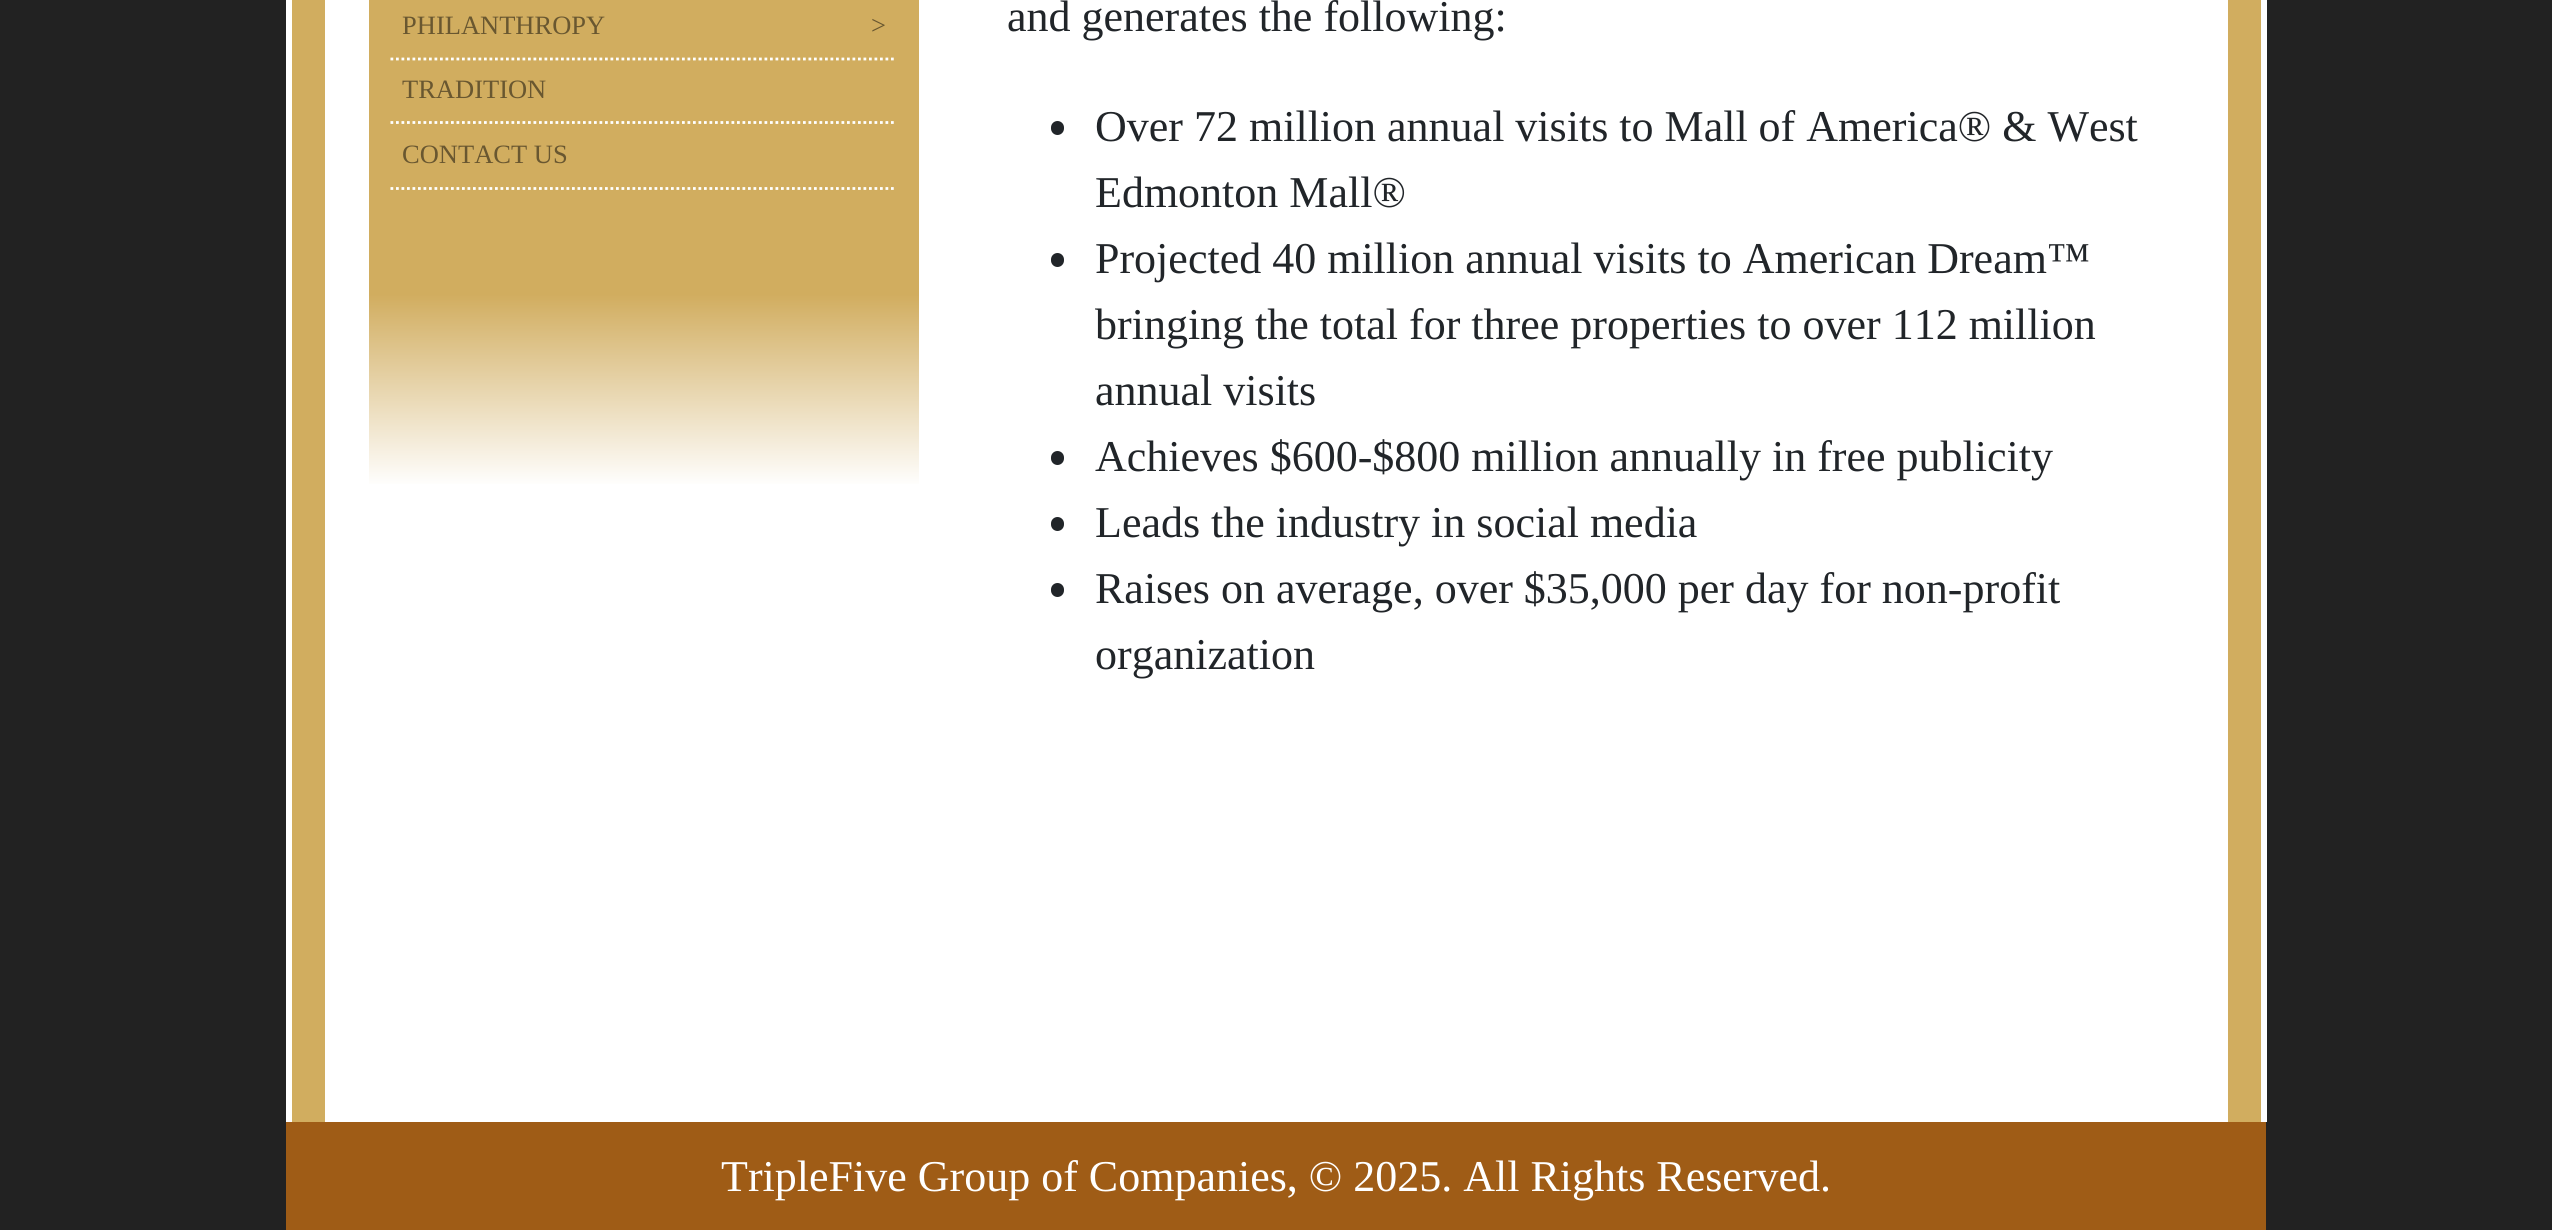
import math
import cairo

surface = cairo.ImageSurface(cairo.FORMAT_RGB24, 2552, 1230)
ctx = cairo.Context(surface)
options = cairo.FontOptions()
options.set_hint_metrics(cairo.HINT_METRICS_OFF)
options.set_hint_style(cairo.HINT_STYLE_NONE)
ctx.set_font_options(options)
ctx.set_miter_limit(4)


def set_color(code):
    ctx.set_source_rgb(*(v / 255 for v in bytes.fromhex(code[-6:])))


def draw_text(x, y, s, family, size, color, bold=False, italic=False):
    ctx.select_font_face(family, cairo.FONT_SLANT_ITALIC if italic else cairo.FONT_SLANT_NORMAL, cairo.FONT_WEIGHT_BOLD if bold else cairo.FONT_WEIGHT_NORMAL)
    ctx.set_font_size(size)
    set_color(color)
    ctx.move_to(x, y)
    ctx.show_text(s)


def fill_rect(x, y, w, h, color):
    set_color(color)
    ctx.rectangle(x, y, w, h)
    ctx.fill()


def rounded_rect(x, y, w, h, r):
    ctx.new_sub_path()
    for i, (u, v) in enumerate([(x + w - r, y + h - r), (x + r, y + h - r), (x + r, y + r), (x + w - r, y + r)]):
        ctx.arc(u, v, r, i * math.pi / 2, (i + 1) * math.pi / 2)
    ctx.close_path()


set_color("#222222")
ctx.paint()
fill_rect(325, 0, 1903, 1122, "#ffffff")
fill_rect(369, 0, 550, 212, "#d1ad5f")
ctx.new_path()
ctx.move_to(390.5, 59)
ctx.line_to(896.5, 59)
set_color("#ffffff")
ctx.set_line_width(2.8)
ctx.set_dash([2.75, 2.75])
ctx.stroke()
draw_text(402, 34, "PHILANTHROPY", "Liberation Serif", 26.5, "#695730")
draw_text(871, 34, ">", "Liberation Serif", 26.5, "#695730")
ctx.new_path()
ctx.move_to(390.5, 122.5)
ctx.line_to(896.5, 122.5)
set_color("#ffffff")
ctx.stroke()
draw_text(402, 98, "TRADITION", "Liberation Serif", 26.5, "#695730")
ctx.new_path()
ctx.move_to(390.5, 188.5)
ctx.line_to(896.5, 188.5)
set_color("#ffffff")
ctx.stroke()
draw_text(402, 163, "CONTACT US", "Liberation Serif", 26.5, "#695730")
gradient = cairo.LinearGradient(644, 212, 644, 487)
gradient.add_color_stop_rgba(0.3, 0.82, 0.678, 0.373, 1)
gradient.add_color_stop_rgba(1, 1, 1, 1, 1)
ctx.set_source(gradient)
ctx.rectangle(369, 212, 550, 272)
ctx.fill()
fill_rect(2261, 0, 6, 1122, "#ffffff")
fill_rect(286, 0, 6, 1122, "#ffffff")
fill_rect(2228, 0, 33, 1122, "#d1ad5f")
fill_rect(292, 0, 33, 1122, "#d1ad5f")
draw_text(1007, 31, "and generates the following:", "Liberation Serif", 44, "#212529")
rounded_rect(1051, 121, 13, 14, 6.5)
ctx.fill()
draw_text(1095, 141, "Over 72 million annual visits to Mall of America® & West", "Liberation Serif", 44, "#212529")
draw_text(1095, 207, "Edmonton Mall®", "Liberation Serif", 44, "#212529")
rounded_rect(1051, 253, 13, 14, 6.5)
ctx.fill()
draw_text(1095, 273, "Projected 40 million annual visits to American Dream™", "Liberation Serif", 44, "#212529")
draw_text(1095, 339, "bringing the total for three properties to over 112 million", "Liberation Serif", 44, "#212529")
draw_text(1095, 405, "annual visits", "Liberation Serif", 44, "#212529")
rounded_rect(1051, 451, 13, 14, 6.5)
ctx.fill()
draw_text(1095, 471, "Achieves $600-$800 million annually in free publicity", "Liberation Serif", 44, "#212529")
rounded_rect(1051, 517, 13, 14, 6.5)
ctx.fill()
draw_text(1095, 537, "Leads the industry in social media", "Liberation Serif", 44, "#212529")
rounded_rect(1051, 583, 13, 14, 6.5)
ctx.fill()
draw_text(1095, 603, "Raises on average, over $35,000 per day for non-profit", "Liberation Serif", 44, "#212529")
draw_text(1095, 669, "organization", "Liberation Serif", 44, "#212529")
fill_rect(286, 1122, 1980, 108, "#9f5c16")
draw_text(721, 1191, "TripleFive Group of Companies, © 2025. All Rights Reserved.", "Liberation Serif", 44, "#ffffff")
surface.write_to_png("output.png")
